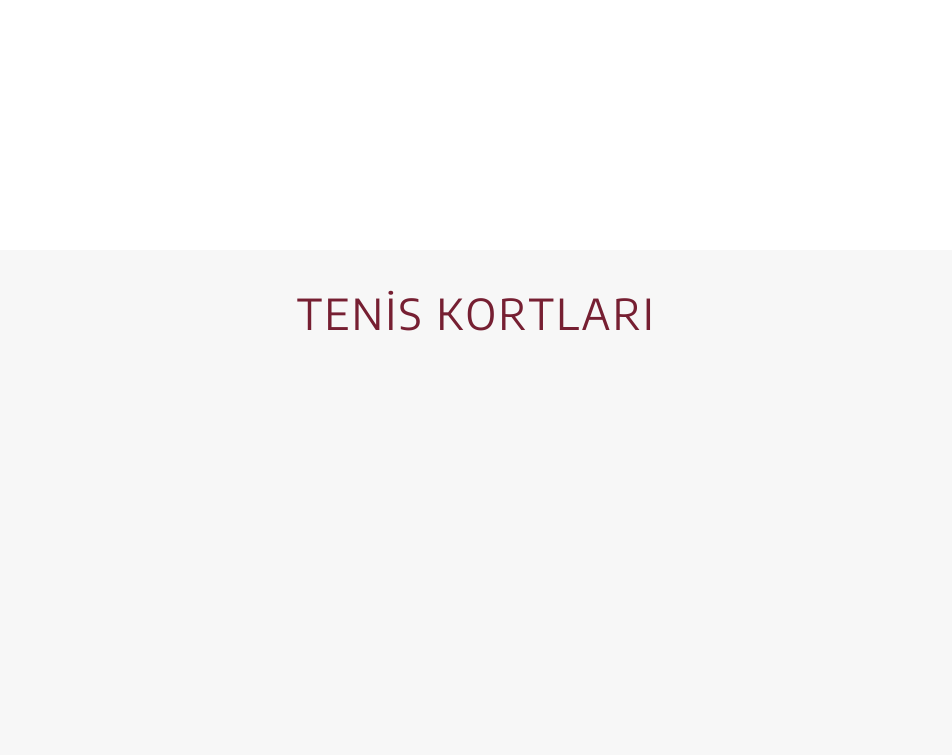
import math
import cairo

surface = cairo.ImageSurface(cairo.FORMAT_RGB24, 952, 755)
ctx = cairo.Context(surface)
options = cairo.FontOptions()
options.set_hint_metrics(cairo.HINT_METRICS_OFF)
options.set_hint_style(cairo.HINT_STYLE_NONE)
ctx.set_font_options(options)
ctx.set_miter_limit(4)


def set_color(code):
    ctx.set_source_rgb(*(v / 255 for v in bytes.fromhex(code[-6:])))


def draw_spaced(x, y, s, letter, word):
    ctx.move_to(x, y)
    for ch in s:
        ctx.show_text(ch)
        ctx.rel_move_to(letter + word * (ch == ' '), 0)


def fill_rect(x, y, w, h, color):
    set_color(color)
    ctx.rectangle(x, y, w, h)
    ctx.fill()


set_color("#f7f7f7")
ctx.paint()
fill_rect(0, 0, 952, 250, "#ffffff")
ctx.select_font_face("Encode Sans Condensed")
ctx.set_font_size(42.5)
set_color("#761f32")
draw_spaced(297, 330, "TENİS KORTLARI", 2.5, 0)
surface.write_to_png("output.png")
